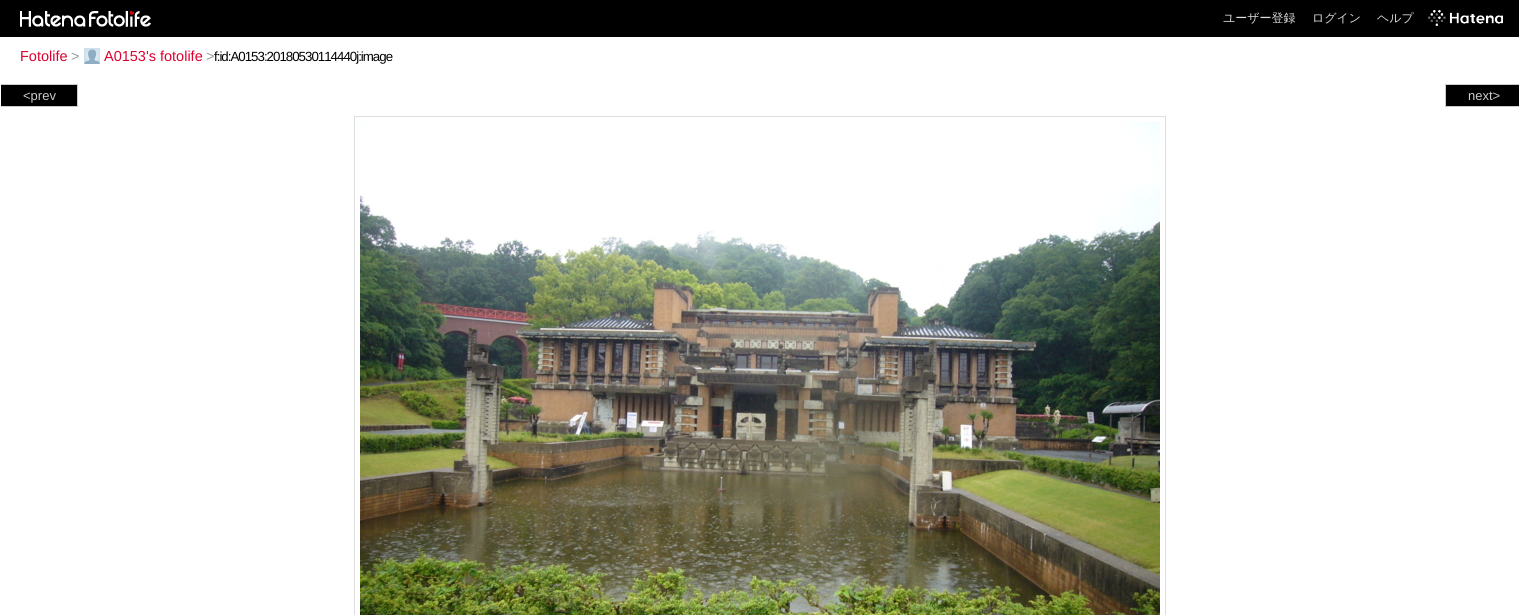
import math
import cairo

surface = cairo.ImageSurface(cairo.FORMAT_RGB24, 1519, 615)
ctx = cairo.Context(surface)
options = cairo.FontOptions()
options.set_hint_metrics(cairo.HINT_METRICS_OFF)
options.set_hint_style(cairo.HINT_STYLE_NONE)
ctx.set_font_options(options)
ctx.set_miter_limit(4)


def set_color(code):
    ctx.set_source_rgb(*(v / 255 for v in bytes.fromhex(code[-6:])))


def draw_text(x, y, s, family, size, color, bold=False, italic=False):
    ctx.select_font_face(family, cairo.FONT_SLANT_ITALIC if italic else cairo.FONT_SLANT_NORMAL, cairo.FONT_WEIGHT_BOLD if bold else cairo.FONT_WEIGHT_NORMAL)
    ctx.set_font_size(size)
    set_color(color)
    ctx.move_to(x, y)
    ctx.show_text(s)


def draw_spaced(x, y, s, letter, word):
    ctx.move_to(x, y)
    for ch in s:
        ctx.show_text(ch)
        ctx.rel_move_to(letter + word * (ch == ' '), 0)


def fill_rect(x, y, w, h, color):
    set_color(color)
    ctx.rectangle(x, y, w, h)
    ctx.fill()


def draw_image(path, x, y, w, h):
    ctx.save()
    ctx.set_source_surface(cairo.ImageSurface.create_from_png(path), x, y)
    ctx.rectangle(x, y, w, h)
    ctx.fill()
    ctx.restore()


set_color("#ffffff")
ctx.paint()
fill_rect(0, 0, 1519, 37, "#000000")
draw_image("assets/img1.png", 20, 11, 66, 16)
draw_image("assets/img2.png", 89, 11, 62, 16)
draw_text(1223, 22, "ユーザー登録", "WenQuanYi Zen Hei Medium", 12, "#dddddd")
draw_text(1312, 22, "ログイン", "WenQuanYi Zen Hei Medium", 12, "#dddddd")
draw_text(1377, 22, "ヘルプ", "WenQuanYi Zen Hei Medium", 12, "#dddddd")
draw_image("assets/img3.png", 1428, 10, 75, 16)
draw_text(20, 61, "Fotolife", "Liberation Sans", 14.5, "#de002f")
draw_text(71, 61, ">", "Liberation Sans", 14.5, "#999999")
draw_image("assets/img4.png", 84, 48, 16, 16)
draw_text(104, 61, "A0153's fotolife", "Liberation Sans", 14.5, "#de002f")
draw_text(206, 61, ">", "Liberation Sans", 14.5, "#999999")
ctx.set_font_size(13.3)
set_color("#000000")
draw_spaced(214, 61, "f:id:A0153:20180530114440j:image", -1, 0)
fill_rect(1, 85, 76, 21, "#000000")
fill_rect(1, 84, 77, 1, "#cccccc")
fill_rect(77, 84, 1, 23, "#cccccc")
fill_rect(1, 106, 77, 1, "#cccccc")
draw_text(23, 100, "<prev", "Liberation Sans", 13, "#cccccc")
fill_rect(1446, 85, 73, 21, "#000000")
fill_rect(1445, 84, 74, 1, "#cccccc")
fill_rect(1445, 106, 74, 1, "#cccccc")
fill_rect(1445, 84, 1, 23, "#cccccc")
draw_text(1468, 100, "next>", "Liberation Sans", 13, "#cccccc")
ctx.rectangle(354.5, 116.5, 811, 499)
set_color("#dedede")
ctx.set_line_width(1)
ctx.stroke()
draw_image("assets/img5.png", 360, 122, 800, 493)
surface.write_to_png("output.png")
